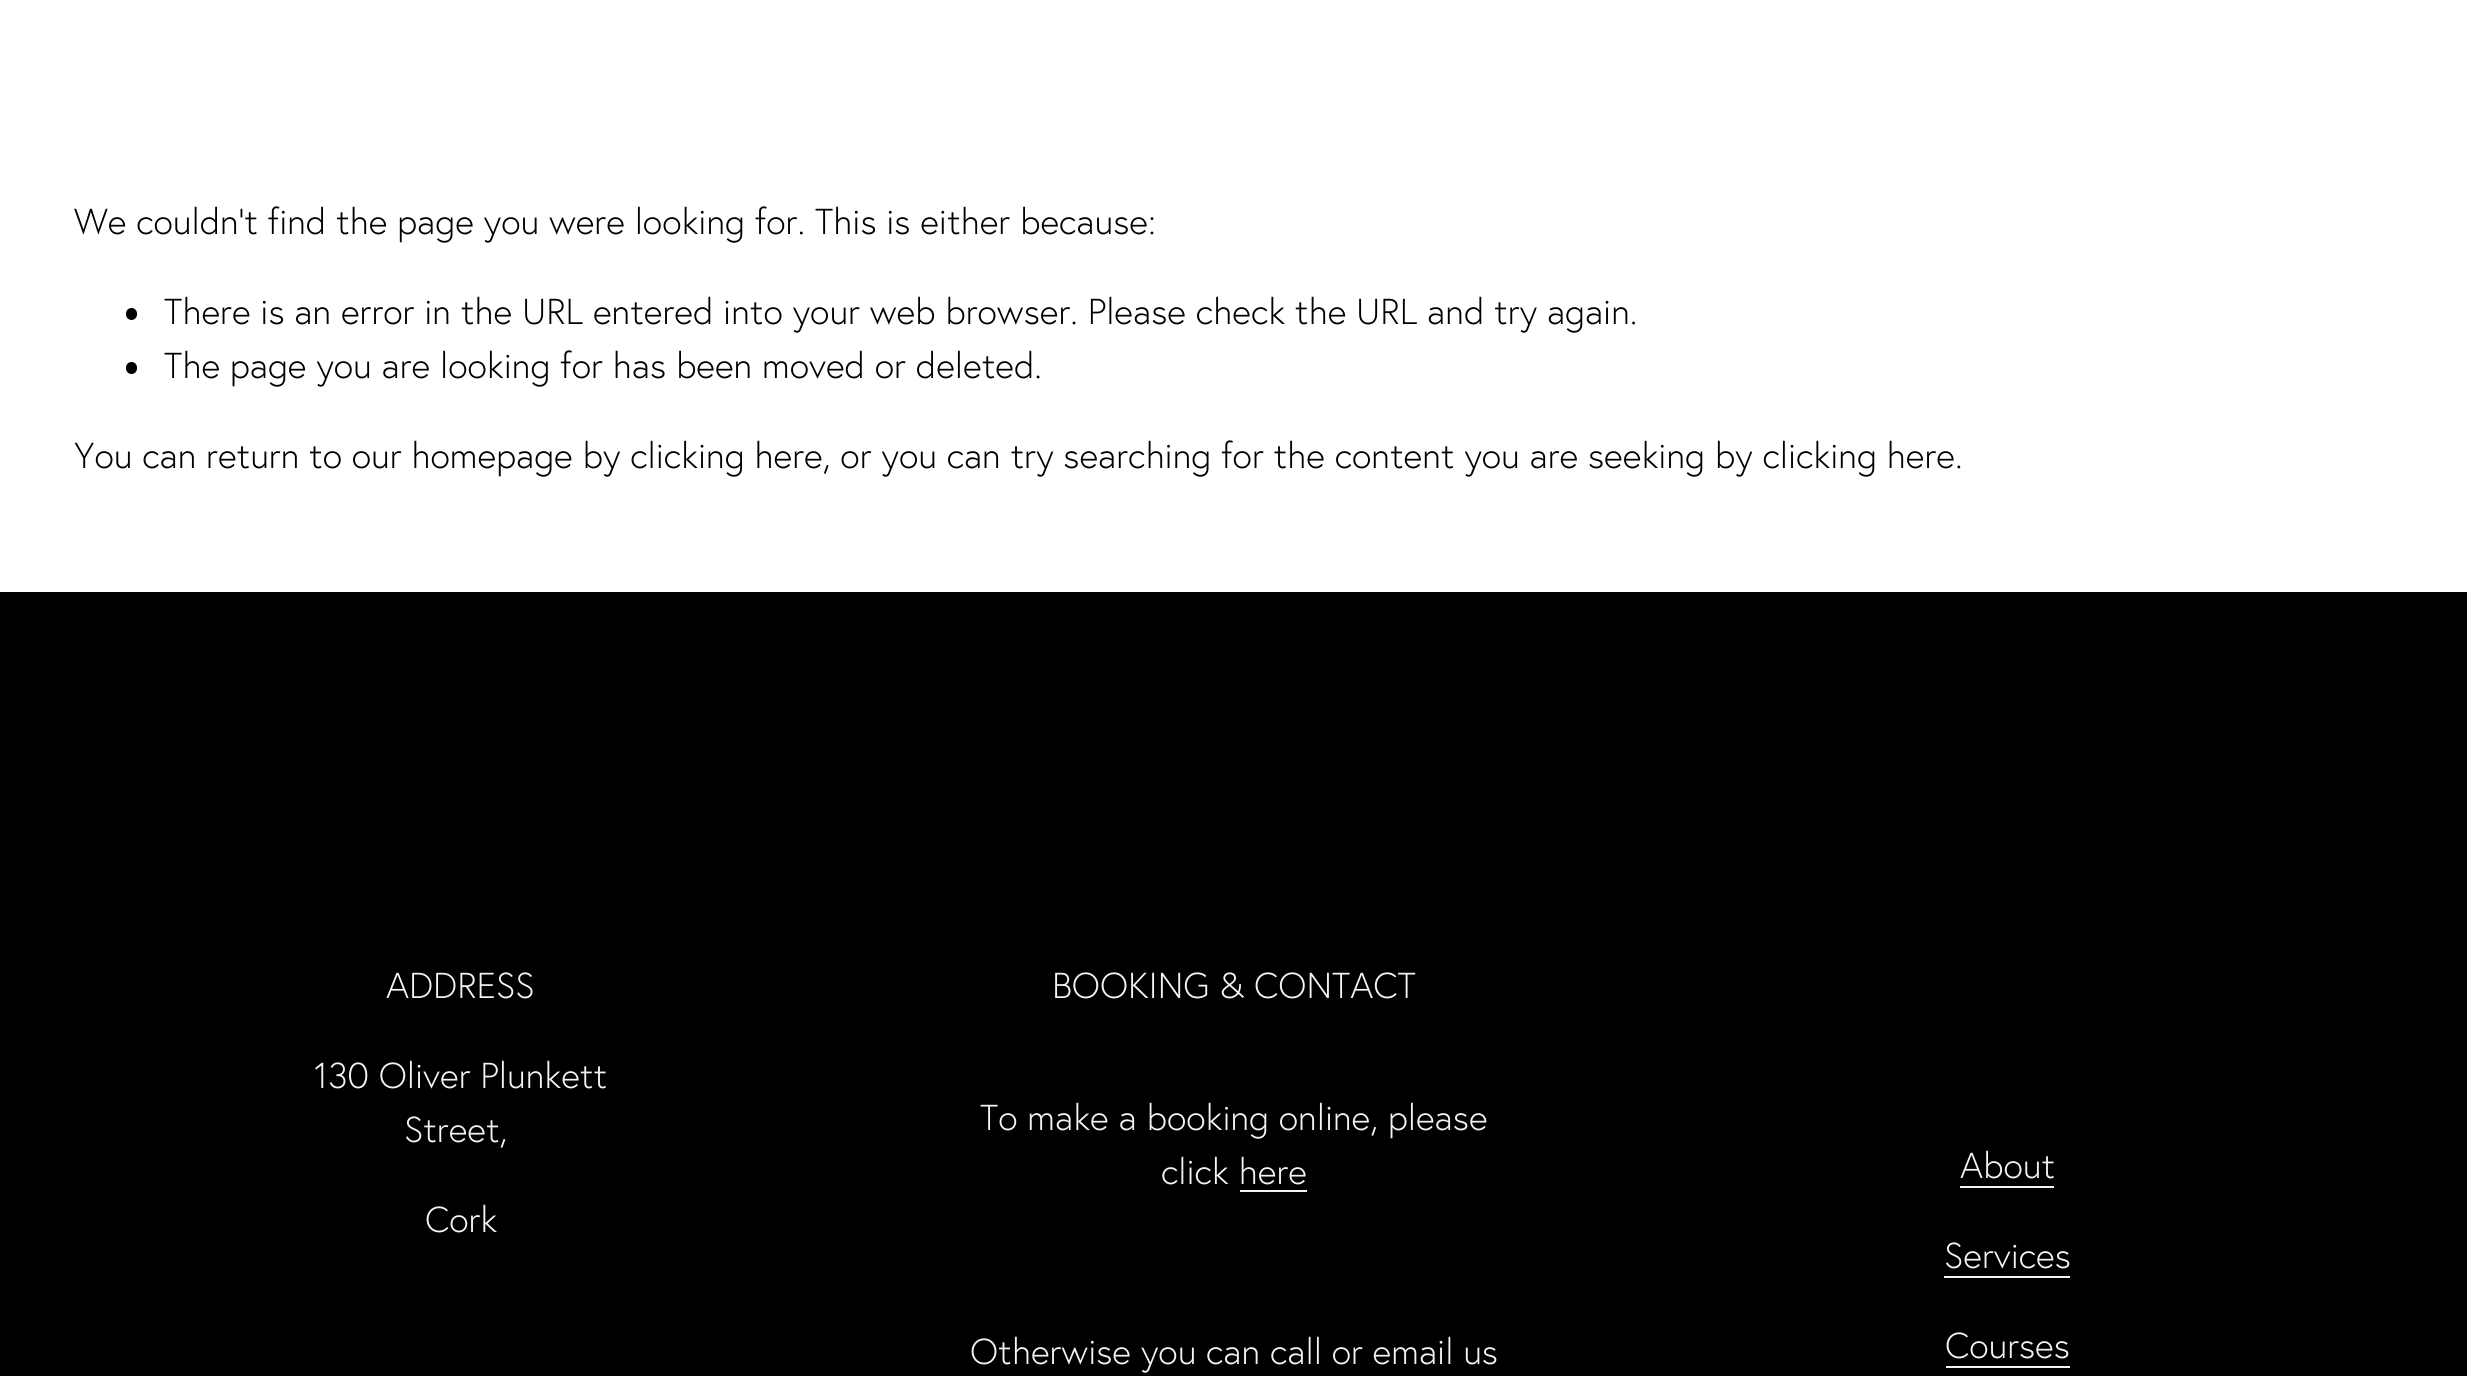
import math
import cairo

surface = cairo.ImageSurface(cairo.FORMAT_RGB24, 2467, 1376)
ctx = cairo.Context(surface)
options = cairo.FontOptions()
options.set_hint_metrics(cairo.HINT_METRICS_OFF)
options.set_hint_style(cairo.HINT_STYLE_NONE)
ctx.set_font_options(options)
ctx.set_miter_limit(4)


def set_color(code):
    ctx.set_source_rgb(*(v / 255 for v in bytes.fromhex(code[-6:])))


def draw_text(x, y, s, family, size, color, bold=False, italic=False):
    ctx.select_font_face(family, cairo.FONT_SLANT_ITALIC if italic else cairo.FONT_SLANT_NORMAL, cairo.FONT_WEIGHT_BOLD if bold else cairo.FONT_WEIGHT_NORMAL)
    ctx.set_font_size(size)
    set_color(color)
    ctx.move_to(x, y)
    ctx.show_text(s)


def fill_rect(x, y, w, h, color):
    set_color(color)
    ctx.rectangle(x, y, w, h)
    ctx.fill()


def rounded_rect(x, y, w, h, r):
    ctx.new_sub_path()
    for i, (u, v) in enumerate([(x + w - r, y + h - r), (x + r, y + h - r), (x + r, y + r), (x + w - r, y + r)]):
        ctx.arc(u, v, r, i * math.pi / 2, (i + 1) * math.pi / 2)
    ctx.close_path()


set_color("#ffffff")
ctx.paint()
draw_text(74, 234, "We couldn't find the page you were looking for. This is either because:", "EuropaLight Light", 36, "#000000")
rounded_rect(126, 308, 11, 12, 5.5)
ctx.fill()
draw_text(164, 324, "There is an error in the URL entered into your web browser. Please check the URL and try again.", "EuropaLight Light", 36, "#000000")
rounded_rect(126, 362, 11, 12, 5.5)
ctx.fill()
draw_text(164, 378, "The page you are looking for has been moved or deleted.", "EuropaLight Light", 36, "#000000")
draw_text(74, 468, "You can return to our homepage by clicking here, or you can try searching for the content you are seeking by clicking here.", "EuropaLight Light", 36, "#000000")
fill_rect(0, 592, 2467, 784, "#000000")
draw_text(386, 998, "ADDRESS", "EuropaLight Light", 36, "#f4f4f4")
draw_text(314, 1088, "130 Oliver Plunkett", "EuropaLight Light", 36, "#f4f4f4")
draw_text(404, 1142, "Street,", "EuropaLight Light", 36, "#f4f4f4")
draw_text(425, 1232, "Cork", "EuropaLight Light", 36, "#f4f4f4")
draw_text(1052, 998, "BOOKING & CONTACT", "EuropaLight Light", 36, "#f4f4f4")
draw_text(980, 1130, "To make a booking online, please", "EuropaLight Light", 36, "#f4f4f4")
draw_text(1161, 1184, "click here", "EuropaLight Light", 36, "#f4f4f4")
fill_rect(1240, 1190, 67, 2, "#f4f4f4")
draw_text(970, 1364, "Otherwise you can call or email us", "EuropaLight Light", 36, "#f4f4f4")
draw_text(1960, 1178, "About", "EuropaLight Light", 36, "#f4f4f4")
fill_rect(1960, 1186, 94, 2, "#f4f4f4")
draw_text(1944, 1268, "Services", "EuropaLight Light", 36, "#f4f4f4")
fill_rect(1944, 1276, 126, 2, "#f4f4f4")
draw_text(1945, 1358, "Courses", "EuropaLight Light", 36, "#f4f4f4")
fill_rect(1946, 1366, 124, 2, "#f4f4f4")
surface.write_to_png("output.png")
